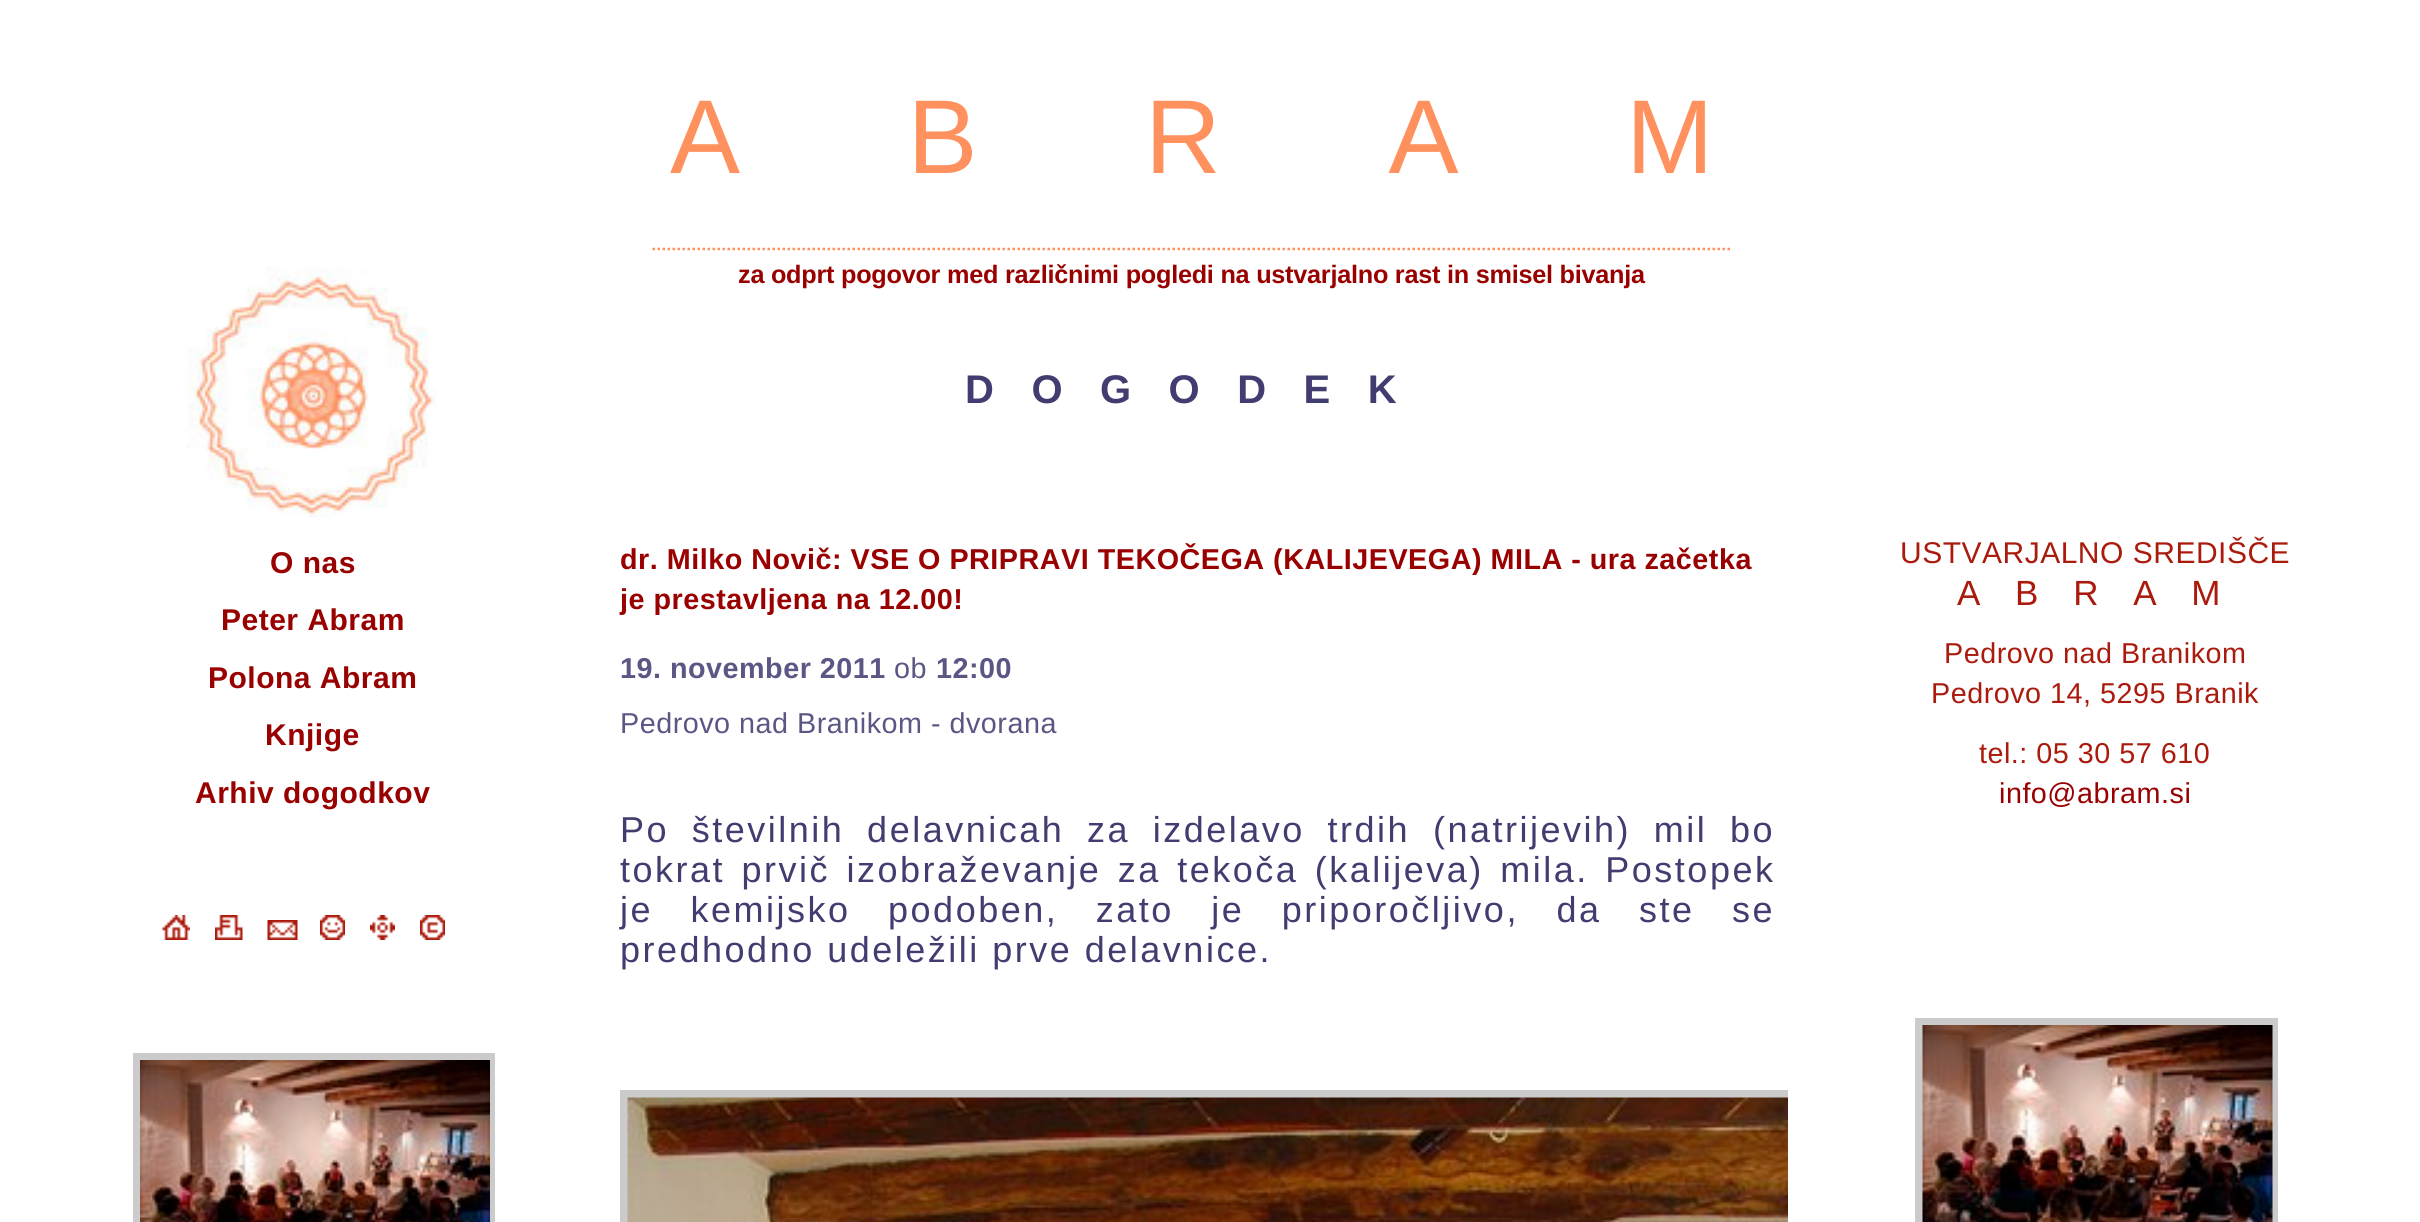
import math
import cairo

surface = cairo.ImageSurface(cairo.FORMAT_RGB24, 2420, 1222)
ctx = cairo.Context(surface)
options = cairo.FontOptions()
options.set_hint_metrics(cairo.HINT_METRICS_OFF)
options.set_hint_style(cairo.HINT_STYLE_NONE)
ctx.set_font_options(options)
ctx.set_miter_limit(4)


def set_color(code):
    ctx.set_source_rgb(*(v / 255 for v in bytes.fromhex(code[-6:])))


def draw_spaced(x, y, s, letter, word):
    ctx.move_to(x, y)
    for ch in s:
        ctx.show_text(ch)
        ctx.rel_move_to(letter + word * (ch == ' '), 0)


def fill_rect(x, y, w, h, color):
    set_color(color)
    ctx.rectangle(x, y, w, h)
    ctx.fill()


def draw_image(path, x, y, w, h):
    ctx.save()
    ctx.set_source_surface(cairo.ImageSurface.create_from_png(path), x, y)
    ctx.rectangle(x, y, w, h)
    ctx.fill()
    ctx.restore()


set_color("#ffffff")
ctx.paint()
draw_image("assets/img1.png", 187, 267, 250, 251)
ctx.select_font_face("Liberation Sans")
ctx.set_font_size(105)
set_color("#ff915f")
draw_spaced(670, 173, "ABRAM", 167.5, 0)
ctx.new_path()
ctx.move_to(652.5, 249)
ctx.line_to(1730, 249)
ctx.set_line_width(2.5)
ctx.set_dash([2.5, 2.5])
ctx.stroke()
ctx.select_font_face("Liberation Sans", cairo.FONT_SLANT_NORMAL, cairo.FONT_WEIGHT_BOLD)
ctx.set_font_size(25.25)
set_color("#990000")
draw_spaced(738, 283, "za odprt pogovor med različnimi pogledi na ustvarjalno rast in smisel bivanja", -0.25, 0)
ctx.set_font_size(40)
set_color("#423d71")
draw_spaced(965, 403, "DOGODEK", 37.5, 0)
ctx.set_font_size(30)
set_color("#990000")
draw_spaced(270, 573, "O nas", 0.5, 0)
draw_spaced(221, 630, "Peter Abram", 0.5, 0)
draw_spaced(208, 688, "Polona Abram", 0.5, 0)
draw_spaced(265, 745, "Knjige", 0.5, 0)
draw_spaced(195, 803, "Arhiv dogodkov", 0.5, 0)
draw_image("assets/img2.png", 162, 915, 28, 25)
draw_image("assets/img3.png", 215, 915, 28, 25)
draw_image("assets/img4.png", 267, 920, 31, 20)
draw_image("assets/img5.png", 320, 915, 25, 25)
draw_image("assets/img6.png", 370, 915, 25, 25)
draw_image("assets/img7.png", 420, 915, 25, 25)
fill_rect(133, 1053, 362, 169, "#cccbcb")
draw_image("assets/img8.png", 140, 1060, 350, 162)
ctx.set_font_size(28.75)
set_color("#990000")
draw_spaced(620, 569, "dr. Milko Novič: VSE O PRIPRAVI TEKOČEGA (KALIJEVEGA) MILA - ura začetka", 0.5, 0)
draw_spaced(620, 609, "je prestavljena na 12.00!", 0.5, 0)
set_color("#5b5784")
draw_spaced(620, 678, "19. november 2011", 0.5, 0)
ctx.select_font_face("Liberation Sans")
draw_spaced(894, 678, "ob", 0.5, 0)
ctx.select_font_face("Liberation Sans", cairo.FONT_SLANT_NORMAL, cairo.FONT_WEIGHT_BOLD)
draw_spaced(936, 678, "12:00", 0.5, 0)
ctx.select_font_face("Liberation Sans")
draw_spaced(620, 733, "Pedrovo nad Branikom - dvorana", 0.5, 0)
ctx.set_font_size(36)
set_color("#423d71")
draw_spaced(620, 842, "Po številnih delavnicah za izdelavo trdih (natrijevih) mil bo", 2.5, 10.25)
draw_spaced(620, 882, "tokrat prvič izobraževanje za tekoča (kalijeva) mila. Postopek", 2.5, 4)
draw_spaced(620, 922, "je kemijsko podoben, zato je priporočljivo, da ste se", 2.5, 25)
draw_spaced(620, 962, "predhodno udeležili prve delavnice.", 2.5, 0)
fill_rect(620, 1090, 1168, 132, "#cccbcb")
draw_image("assets/img9.png", 627, 1097, 1161, 125)
ctx.set_font_size(30)
set_color("#ab1b0d")
draw_spaced(1900, 563, "USTVARJALNO SREDIŠČE", 0.5, 0)
ctx.set_font_size(35)
draw_spaced(1957, 605, "A B R A M", 12.5, 0)
ctx.set_font_size(28.75)
draw_spaced(1944, 663, "Pedrovo nad Branikom", 0.5, 0)
draw_spaced(1931, 703, "Pedrovo 14, 5295 Branik", 0.5, 0)
draw_spaced(1979, 763, "tel.: 05 30 57 610", 0.5, 0)
set_color("#990000")
draw_spaced(1999, 803, "info@abram.si", 0.5, 0)
fill_rect(1915, 1018, 363, 204, "#cccbcb")
draw_image("assets/img10.png", 1922, 1025, 351, 197)
surface.write_to_png("output.png")
